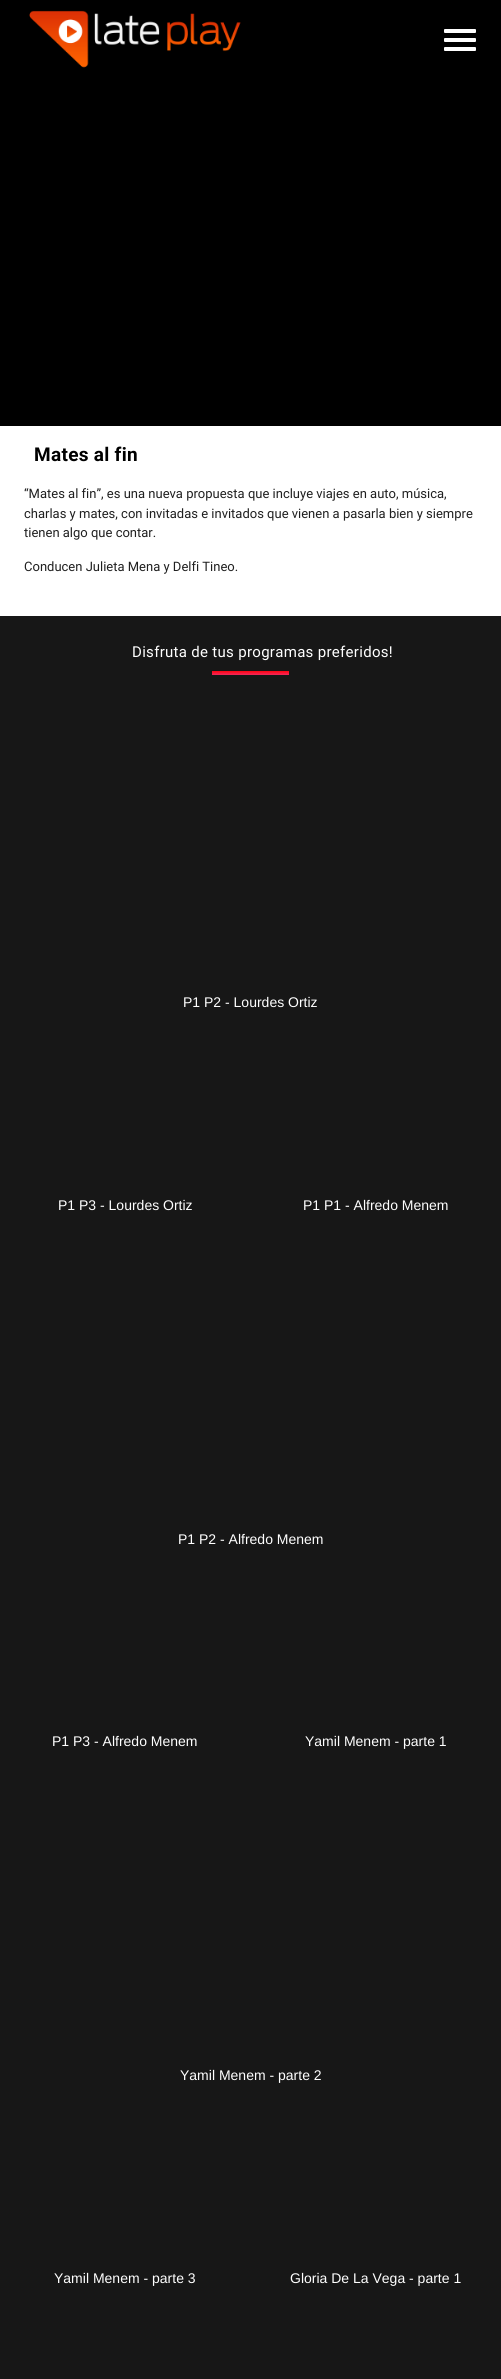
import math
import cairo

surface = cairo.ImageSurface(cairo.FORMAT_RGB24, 501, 2379)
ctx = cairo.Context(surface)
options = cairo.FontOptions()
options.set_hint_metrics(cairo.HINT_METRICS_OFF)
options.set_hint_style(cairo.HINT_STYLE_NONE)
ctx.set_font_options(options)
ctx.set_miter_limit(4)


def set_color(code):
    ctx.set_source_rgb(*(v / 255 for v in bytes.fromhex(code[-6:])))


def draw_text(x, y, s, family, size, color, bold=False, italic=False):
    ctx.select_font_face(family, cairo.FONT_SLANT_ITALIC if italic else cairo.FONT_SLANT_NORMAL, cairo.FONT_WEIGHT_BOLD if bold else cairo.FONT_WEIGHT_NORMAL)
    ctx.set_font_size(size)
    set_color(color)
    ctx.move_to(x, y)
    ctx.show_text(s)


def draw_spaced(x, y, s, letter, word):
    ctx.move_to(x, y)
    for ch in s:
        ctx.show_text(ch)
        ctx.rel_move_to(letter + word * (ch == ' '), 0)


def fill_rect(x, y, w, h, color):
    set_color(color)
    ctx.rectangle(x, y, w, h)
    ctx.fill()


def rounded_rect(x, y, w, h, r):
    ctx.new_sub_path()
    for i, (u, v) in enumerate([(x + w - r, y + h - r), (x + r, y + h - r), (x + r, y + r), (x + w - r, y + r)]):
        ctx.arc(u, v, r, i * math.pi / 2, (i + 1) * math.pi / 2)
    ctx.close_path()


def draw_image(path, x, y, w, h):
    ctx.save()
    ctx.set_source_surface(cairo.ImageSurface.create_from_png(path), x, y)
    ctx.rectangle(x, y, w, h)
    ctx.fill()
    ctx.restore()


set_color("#000000")
ctx.paint()
draw_image("assets/img1.png", 29, 10, 212, 58)
set_color("#ffffff")
rounded_rect(444, 29, 32, 4, 1)
ctx.fill()
rounded_rect(444, 38, 32, 4, 1)
ctx.fill()
rounded_rect(444, 47, 32, 4, 1)
ctx.fill()
fill_rect(0, 426, 501, 190, "#ffffff")
ctx.select_font_face("Roboto", cairo.FONT_SLANT_NORMAL, cairo.FONT_WEIGHT_BOLD)
ctx.set_font_size(19)
set_color("#000000")
draw_spaced(34, 461, "Mates al fin", 0.3, 0)
draw_text(24, 498, "“Mates al fin”, es una nueva propuesta que incluye viajes en auto, música,", "Roboto", 13, "#202020")
draw_text(24, 518, "charlas y mates, con invitadas e invitados que vienen a pasarla bien y siempre", "Roboto", 13, "#202020")
draw_text(24, 537, "tienen algo que contar.", "Roboto", 13, "#202020")
draw_text(24, 571, "Conducen Julieta Mena y Delfi Tineo.", "Roboto", 13, "#202020")
fill_rect(0, 616, 501, 1763, "#171717")
ctx.set_font_size(15)
set_color("#ffffff")
draw_spaced(132, 657, "Disfruta de tus programas preferidos!", 0.3, 0)
gradient = cairo.LinearGradient(251, 671, 251, 675)
gradient.add_color_stop_rgba(0, 1, 0.012, 0.063, 1)
gradient.add_color_stop_rgba(1, 0.949, 0.161, 0.357, 1)
ctx.set_source(gradient)
ctx.rectangle(212, 671, 77, 4)
ctx.fill()
draw_text(183, 1007, "P1 P2 - Lourdes Ortiz", "Liberation Sans", 14, "#ffffff")
draw_text(58, 1210, "P1 P3 - Lourdes Ortiz", "Liberation Sans", 14, "#ffffff")
draw_text(303, 1210, "P1 P1 - Alfredo Menem", "Liberation Sans", 14, "#ffffff")
draw_text(178, 1544, "P1 P2 - Alfredo Menem", "Liberation Sans", 14, "#ffffff")
draw_text(52, 1746, "P1 P3 - Alfredo Menem", "Liberation Sans", 14, "#ffffff")
draw_text(305, 1746, "Yamil Menem - parte 1", "Liberation Sans", 14, "#ffffff")
draw_text(180, 2080, "Yamil Menem - parte 2", "Liberation Sans", 14, "#ffffff")
draw_text(54, 2283, "Yamil Menem - parte 3", "Liberation Sans", 14, "#ffffff")
draw_text(290, 2283, "Gloria De La Vega - parte 1", "Liberation Sans", 14, "#ffffff")
surface.write_to_png("output.png")
